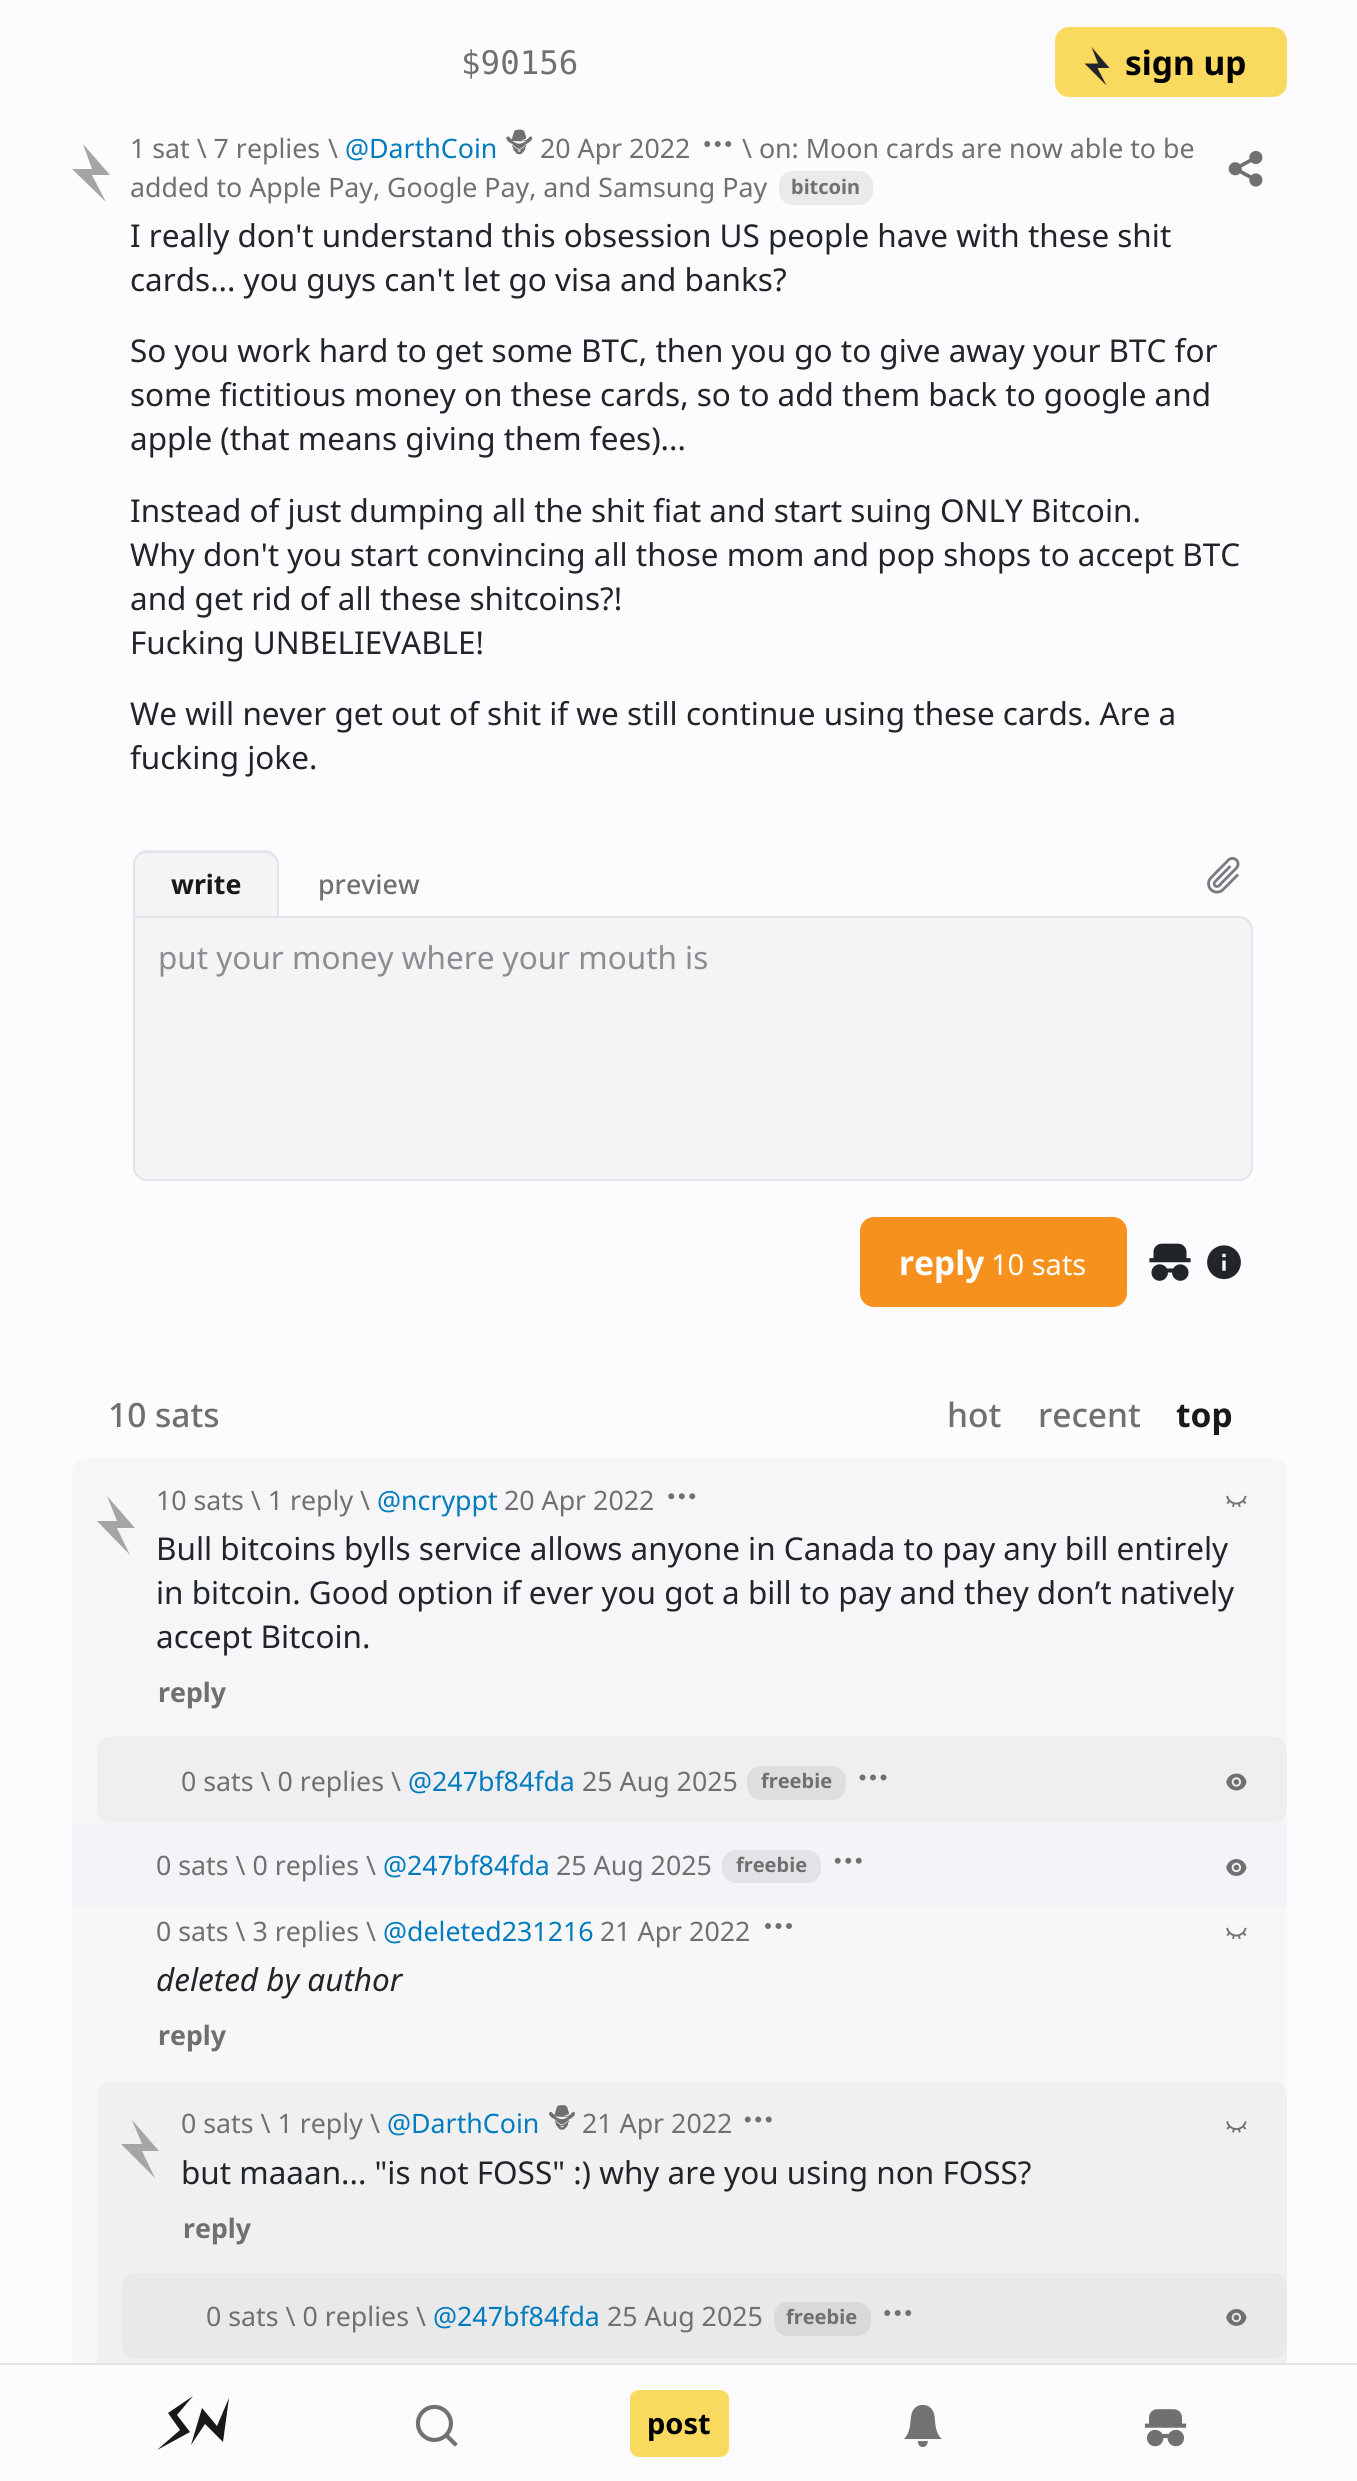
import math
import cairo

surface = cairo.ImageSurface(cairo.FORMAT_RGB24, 1357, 2481)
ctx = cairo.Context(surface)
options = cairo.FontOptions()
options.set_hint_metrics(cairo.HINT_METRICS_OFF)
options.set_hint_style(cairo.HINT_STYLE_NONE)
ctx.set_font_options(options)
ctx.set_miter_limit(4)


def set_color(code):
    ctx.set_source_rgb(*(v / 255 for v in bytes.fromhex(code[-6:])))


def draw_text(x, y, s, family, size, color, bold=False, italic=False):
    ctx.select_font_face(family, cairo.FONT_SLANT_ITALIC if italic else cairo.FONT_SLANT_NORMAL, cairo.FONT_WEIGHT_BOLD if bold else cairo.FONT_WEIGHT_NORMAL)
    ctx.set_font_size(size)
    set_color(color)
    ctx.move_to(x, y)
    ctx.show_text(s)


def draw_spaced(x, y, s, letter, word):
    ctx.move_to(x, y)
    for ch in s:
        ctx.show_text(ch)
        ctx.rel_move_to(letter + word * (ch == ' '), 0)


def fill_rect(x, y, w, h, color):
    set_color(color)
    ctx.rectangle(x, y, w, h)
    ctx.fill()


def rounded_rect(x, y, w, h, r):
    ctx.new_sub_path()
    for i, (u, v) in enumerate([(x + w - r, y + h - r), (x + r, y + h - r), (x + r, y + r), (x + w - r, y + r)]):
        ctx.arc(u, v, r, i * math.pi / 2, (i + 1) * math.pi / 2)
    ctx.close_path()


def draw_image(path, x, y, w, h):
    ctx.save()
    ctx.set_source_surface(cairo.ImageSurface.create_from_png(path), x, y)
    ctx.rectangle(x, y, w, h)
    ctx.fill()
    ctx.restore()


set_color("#fcfcff")
ctx.paint()
draw_text(461, 74, "$90156", "DejaVu Sans Mono", 32.5, "#707070")
set_color("#fada5e")
rounded_rect(1057.5, 29.5, 227, 65, 11.5)
ctx.fill_preserve()
ctx.set_line_width(5)
ctx.stroke()
set_color("#212529")
ctx.new_path()
ctx.move_to(1091.5, 47)
ctx.line_to(1098, 63.5)
ctx.line_to(1084.5, 63.5)
ctx.line_to(1106.5, 85.5)
ctx.line_to(1097.5, 68)
ctx.line_to(1109.5, 68)
ctx.close_path()
ctx.fill()
draw_text(1125, 75, "sign up", "Noto Sans", 33.5, "#000000", bold=True)
set_color("#a5a5a5")
ctx.new_path()
ctx.move_to(83, 144)
ctx.line_to(92, 169)
ctx.line_to(72, 169)
ctx.line_to(106, 202)
ctx.line_to(92, 175)
ctx.line_to(110, 175)
ctx.close_path()
ctx.fill()
draw_text(130, 158, "1 sat \\ 7 replies", "Noto Sans", 26.75, "#707070")
draw_text(328, 158, "\\", "Noto Sans", 26.75, "#707070")
draw_text(345, 158, "@DarthCoin", "Noto Sans", 26.75, "#007cbe")
draw_image("assets/img1.png", 506, 129, 27, 26)
draw_text(540, 158, "20 Apr 2022", "Noto Sans", 26.75, "#707070")
draw_image("assets/img2.png", 704, 141, 28, 6)
draw_text(742, 158, "\\ on: Moon cards are now able to be", "Noto Sans", 26.75, "#707070")
draw_text(130, 197, "added to Apple Pay, Google Pay, and Samsung Pay", "Noto Sans", 26.75, "#707070")
set_color("#eaeaed")
rounded_rect(779, 171, 94, 34, 14)
ctx.fill()
draw_text(791, 194, "bitcoin", "Noto Sans", 20, "#707070", bold=True)
draw_image("assets/img3.png", 1228, 150, 35, 37)
ctx.select_font_face("Noto Sans")
ctx.set_font_size(31.45)
set_color("#212529")
draw_spaced(130, 247, "I really don't understand this obsession US people have with these shit", 0, -0.1)
draw_text(130, 291, "cards... you guys can't let go visa and banks?", "Noto Sans", 31.45, "#212529")
draw_text(130, 362, "So you work hard to get some BTC, then you go to give away your BTC for", "Noto Sans", 31.45, "#212529")
draw_text(130, 406, "some fictitious money on these cards, so to add them back to google and", "Noto Sans", 31.45, "#212529")
draw_text(130, 450, "apple (that means giving them fees)...", "Noto Sans", 31.45, "#212529")
draw_text(130, 522, "Instead of just dumping all the shit fiat and start suing ONLY Bitcoin.", "Noto Sans", 31.45, "#212529")
draw_text(130, 566, "Why don't you start convincing all those mom and pop shops to accept BTC", "Noto Sans", 31.45, "#212529")
draw_text(130, 610, "and get rid of all these shitcoins?!", "Noto Sans", 31.45, "#212529")
draw_text(130, 654, "Fucking UNBELIEVABLE!", "Noto Sans", 31.45, "#212529")
draw_text(130, 725, "We will never get out of shit if we still continue using these cards. Are a", "Noto Sans", 31.45, "#212529")
draw_text(130, 769, "fucking joke.", "Noto Sans", 31.45, "#212529")
set_color("#f4f4f7")
ctx.new_path()
ctx.move_to(147, 851)
ctx.line_to(265, 851)
ctx.curve_to(272.5, 851, 279, 857.5, 279, 865)
ctx.line_to(279, 916)
ctx.line_to(133, 916)
ctx.line_to(133, 865)
ctx.curve_to(133, 857.5, 139.5, 851, 147, 851)
ctx.close_path()
ctx.fill()
ctx.set_source_rgba(0.808, 0.831, 0.855, 0.5)
ctx.set_fill_rule(cairo.FILL_RULE_EVEN_ODD)
ctx.new_path()
ctx.move_to(147, 850)
ctx.line_to(265, 850)
ctx.curve_to(273, 850, 279, 857, 279, 865)
ctx.line_to(279, 916)
ctx.line_to(133, 916)
ctx.line_to(133, 865)
ctx.curve_to(133, 857, 139, 850, 147, 850)
ctx.close_path()
ctx.move_to(147, 853)
ctx.line_to(265, 853)
ctx.curve_to(271, 853, 277, 858, 277, 865)
ctx.line_to(277, 916)
ctx.line_to(135, 916)
ctx.line_to(135, 865)
ctx.curve_to(135, 858, 140, 853, 147, 853)
ctx.close_path()
ctx.fill()
draw_text(171, 894, "write", "Noto Sans", 26.75, "#19191a", bold=True)
draw_text(318, 894, "preview", "Noto Sans Medium", 26.75, "#707070")
draw_image("assets/img4.png", 1207, 857, 33, 37)
set_color("#f4f4f7")
ctx.new_path()
ctx.move_to(133, 916)
ctx.line_to(1239, 916)
ctx.curve_to(1246.5, 916, 1253, 922.5, 1253, 930)
ctx.line_to(1253, 1167)
ctx.curve_to(1253, 1174.5, 1246.5, 1181, 1239, 1181)
ctx.line_to(147, 1181)
ctx.curve_to(139.5, 1181, 133, 1174.5, 133, 1167)
ctx.close_path()
ctx.fill()
ctx.new_path()
ctx.move_to(134, 917)
ctx.line_to(1239, 917)
ctx.curve_to(1246, 917, 1252, 923, 1252, 930)
ctx.line_to(1252, 1167)
ctx.curve_to(1252, 1174, 1246, 1180, 1239, 1180)
ctx.line_to(147, 1180)
ctx.curve_to(140, 1180, 134, 1174, 134, 1167)
ctx.close_path()
ctx.set_source_rgba(0.808, 0.831, 0.855, 0.5)
ctx.set_line_width(2)
ctx.stroke()
draw_text(158, 969, "put your money where your mouth is", "Noto Sans", 31.45, "#8b8d90")
set_color("#f6911d")
rounded_rect(860, 1217, 267, 90, 14)
ctx.fill()
draw_text(899, 1275, "reply", "Noto Sans", 33.5, "#ffffff", bold=True)
draw_text(991, 1275, "10 sats", "Noto Sans", 29, "#ffffff")
draw_image("assets/img5.png", 1149, 1243, 42, 38)
draw_image("assets/img6.png", 1207, 1245, 34, 35)
draw_text(108, 1427, "10 sats", "Noto Sans Medium", 33.5, "#707070")
draw_text(947, 1427, "hot", "Noto Sans Medium", 33.5, "#707070")
draw_text(1038, 1427, "recent", "Noto Sans Medium", 33.5, "#707070")
draw_text(1176, 1427, "top", "Noto Sans", 33.5, "#19191a", bold=True)
set_color("#f6f6f8")
ctx.new_path()
ctx.move_to(86, 1458)
ctx.line_to(1273, 1458)
ctx.curve_to(1280.5, 1458, 1287, 1464.5, 1287, 1472)
ctx.line_to(1287, 1823)
ctx.line_to(72, 1823)
ctx.line_to(72, 1472)
ctx.curve_to(72, 1464.5, 78.5, 1458, 86, 1458)
ctx.close_path()
ctx.fill()
set_color("#a5a5a5")
ctx.set_fill_rule(cairo.FILL_RULE_WINDING)
ctx.new_path()
ctx.move_to(107, 1496)
ctx.line_to(117, 1521)
ctx.line_to(97, 1521)
ctx.line_to(130, 1555)
ctx.line_to(117, 1528)
ctx.line_to(135, 1528)
ctx.close_path()
ctx.fill()
draw_text(156, 1510, "10 sats \\ 1 reply", "Noto Sans", 26.75, "#707070")
draw_text(360, 1510, "\\", "Noto Sans", 26.75, "#707070")
draw_text(377, 1510, "@ncryppt", "Noto Sans", 26.75, "#007cbe")
draw_text(504, 1510, "20 Apr 2022", "Noto Sans", 26.75, "#707070")
draw_image("assets/img7.png", 668, 1493, 28, 7)
draw_image("assets/img8.png", 1226, 1495, 21, 12)
draw_text(156, 1560, "Bull bitcoins bylls service allows anyone in Canada to pay any bill entirely", "Noto Sans", 31.45, "#212529")
draw_text(156, 1604, "in bitcoin. Good option if ever you got a bill to pay and they don’t natively", "Noto Sans", 31.45, "#212529")
draw_text(156, 1648, "accept Bitcoin.", "Noto Sans", 31.45, "#212529")
draw_text(158, 1702, "reply", "Noto Sans", 26.75, "#707070", bold=True)
set_color("#efeff1")
rounded_rect(97, 1737, 1190, 86, 14)
ctx.fill()
draw_text(181, 1791, "0 sats \\ 0 replies", "Noto Sans", 26.75, "#707070")
draw_text(391, 1791, "\\", "Noto Sans", 26.75, "#707070")
draw_text(408, 1791, "@247bf84fda", "Noto Sans", 26.75, "#007cbe")
draw_text(582, 1791, "25 Aug 2025", "Noto Sans", 26.75, "#707070")
set_color("#dedee0")
rounded_rect(747, 1766, 99, 34, 14)
ctx.fill()
draw_text(761, 1788, "freebie", "Noto Sans", 20, "#707070", bold=True)
draw_image("assets/img9.png", 859, 1774, 28, 7)
draw_image("assets/img10.png", 1226, 1773, 21, 18)
fill_rect(72, 1823, 1215, 83, "#f4f4f8")
draw_text(156, 1875, "0 sats \\ 0 replies", "Noto Sans", 26.75, "#707070")
draw_text(366, 1875, "\\", "Noto Sans", 26.75, "#707070")
draw_text(383, 1875, "@247bf84fda", "Noto Sans", 26.75, "#007cbe")
draw_text(556, 1875, "25 Aug 2025", "Noto Sans", 26.75, "#707070")
set_color("#e3e3e7")
rounded_rect(722, 1850, 99, 33, 14)
ctx.fill()
draw_text(736, 1872, "freebie", "Noto Sans", 20, "#707070", bold=True)
draw_image("assets/img11.png", 834, 1857, 28, 7)
draw_image("assets/img12.png", 1226, 1859, 21, 17)
fill_rect(72, 1906, 1215, 457, "#f7f7f8")
draw_text(156, 1941, "0 sats \\ 3 replies", "Noto Sans", 26.75, "#707070")
draw_text(366, 1941, "\\", "Noto Sans", 26.75, "#707070")
draw_text(383, 1941, "@deleted231216", "Noto Sans", 26.75, "#007cbe")
draw_text(600, 1941, "21 Apr 2022", "Noto Sans", 26.75, "#707070")
draw_image("assets/img13.png", 765, 1923, 27, 6)
draw_image("assets/img14.png", 1226, 1927, 21, 12)
draw_text(156, 1991, "deleted by author", "Noto Sans", 31.45, "#212529", italic=True)
draw_text(158, 2045, "reply", "Noto Sans", 26.75, "#707070", bold=True)
set_color("#f0f0f1")
ctx.new_path()
ctx.move_to(111, 2081)
ctx.line_to(1273, 2081)
ctx.curve_to(1280.5, 2081, 1287, 2087.5, 1287, 2095)
ctx.line_to(1287, 2358)
ctx.line_to(97, 2358)
ctx.line_to(97, 2095)
ctx.curve_to(97, 2087.5, 103.5, 2081, 111, 2081)
ctx.close_path()
ctx.fill()
set_color("#a5a5a5")
ctx.new_path()
ctx.move_to(132, 2120)
ctx.line_to(142, 2144)
ctx.line_to(121, 2144)
ctx.line_to(155, 2178)
ctx.line_to(142, 2151)
ctx.line_to(159, 2151)
ctx.close_path()
ctx.fill()
draw_text(181, 2133, "0 sats \\ 1 reply", "Noto Sans", 26.75, "#707070")
draw_text(370, 2133, "\\", "Noto Sans", 26.75, "#707070")
draw_text(387, 2133, "@DarthCoin", "Noto Sans", 26.75, "#007cbe")
draw_image("assets/img15.png", 549, 2105, 26, 25)
draw_text(582, 2133, "21 Apr 2022", "Noto Sans", 26.75, "#707070")
draw_image("assets/img16.png", 744, 2116, 28, 7)
draw_image("assets/img17.png", 1226, 2121, 21, 12)
draw_text(181, 2184, "but maaan... \"is not FOSS\" :) why are you using non FOSS?", "Noto Sans", 31.45, "#212529")
draw_text(183, 2238, "reply", "Noto Sans", 26.75, "#707070", bold=True)
set_color("#e9e9e9")
rounded_rect(122, 2273, 1165, 85, 14)
ctx.fill()
draw_text(206, 2326, "0 sats \\ 0 replies", "Noto Sans", 26.75, "#707070")
draw_text(416, 2326, "\\", "Noto Sans", 26.75, "#707070")
draw_text(433, 2326, "@247bf84fda", "Noto Sans", 26.75, "#007cbe")
draw_text(607, 2326, "25 Aug 2025", "Noto Sans", 26.75, "#707070")
set_color("#d9d9d9")
rounded_rect(774, 2302, 97, 34, 14)
ctx.fill()
draw_text(786, 2324, "freebie", "Noto Sans", 20, "#707070", bold=True)
draw_image("assets/img18.png", 884, 2310, 28, 6)
draw_image("assets/img19.png", 1226, 2309, 21, 17)
fill_rect(97, 2358, 1190, 5, "#f0f0f1")
fill_rect(0, 2363, 1357, 2, "#e3e3e6")
set_color("#19191a")
ctx.set_fill_rule(cairo.FILL_RULE_EVEN_ODD)
ctx.new_path()
ctx.move_to(168, 2413)
ctx.line_to(180, 2430)
ctx.line_to(157, 2450)
ctx.line_to(190, 2432)
ctx.line_to(177, 2415)
ctx.line_to(193, 2396)
ctx.close_path()
ctx.move_to(217, 2426)
ctx.line_to(202, 2408)
ctx.line_to(191, 2445)
ctx.line_to(205, 2424)
ctx.line_to(223, 2442)
ctx.line_to(229, 2398)
ctx.close_path()
ctx.fill()
draw_image("assets/img20.png", 415, 2404, 43, 43)
set_color("#fada5e")
rounded_rect(630, 2390, 99, 67, 9)
ctx.fill()
draw_text(647, 2434, "post", "Noto Sans", 29, "#000000", bold=True)
draw_image("assets/img21.png", 904, 2404, 38, 43)
draw_image("assets/img22.png", 1144, 2409, 43, 38)
surface.write_to_png("output.png")
